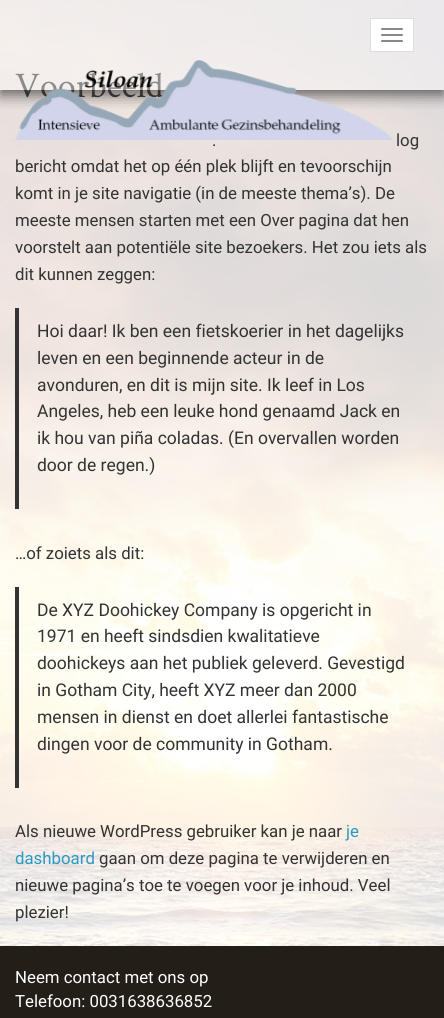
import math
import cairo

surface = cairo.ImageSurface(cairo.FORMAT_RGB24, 444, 1018)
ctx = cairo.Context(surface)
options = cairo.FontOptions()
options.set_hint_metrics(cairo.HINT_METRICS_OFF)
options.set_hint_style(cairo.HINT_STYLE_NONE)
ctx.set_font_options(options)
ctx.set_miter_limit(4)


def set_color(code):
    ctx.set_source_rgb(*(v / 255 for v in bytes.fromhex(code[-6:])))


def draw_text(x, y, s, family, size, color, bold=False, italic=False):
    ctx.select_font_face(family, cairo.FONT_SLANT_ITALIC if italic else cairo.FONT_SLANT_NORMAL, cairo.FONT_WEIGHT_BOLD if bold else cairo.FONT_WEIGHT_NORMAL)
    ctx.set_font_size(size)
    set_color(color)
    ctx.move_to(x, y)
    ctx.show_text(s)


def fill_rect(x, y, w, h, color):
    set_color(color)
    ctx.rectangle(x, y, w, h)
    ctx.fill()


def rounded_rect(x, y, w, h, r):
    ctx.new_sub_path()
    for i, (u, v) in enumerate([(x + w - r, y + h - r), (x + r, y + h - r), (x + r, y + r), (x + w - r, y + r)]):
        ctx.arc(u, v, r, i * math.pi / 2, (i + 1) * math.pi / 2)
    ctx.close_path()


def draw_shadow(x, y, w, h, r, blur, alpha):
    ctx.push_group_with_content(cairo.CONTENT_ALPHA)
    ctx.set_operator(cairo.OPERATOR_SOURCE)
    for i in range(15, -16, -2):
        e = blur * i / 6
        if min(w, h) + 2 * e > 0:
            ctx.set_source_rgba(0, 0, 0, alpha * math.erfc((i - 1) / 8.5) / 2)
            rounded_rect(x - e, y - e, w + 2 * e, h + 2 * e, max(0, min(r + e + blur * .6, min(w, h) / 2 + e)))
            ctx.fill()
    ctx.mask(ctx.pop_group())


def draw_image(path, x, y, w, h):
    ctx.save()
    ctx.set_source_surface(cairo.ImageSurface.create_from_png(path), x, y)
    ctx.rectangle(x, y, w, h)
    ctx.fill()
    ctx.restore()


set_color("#ffffff")
ctx.paint()
draw_image("assets/img1.png", 0, 0, 444, 946)
ctx.save()
ctx.rectangle(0, 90, 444, 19)
ctx.clip()
set_color("#000000")
draw_shadow(0, 5, 444, 90, 0, 7.5, 0.6)
ctx.restore()
draw_text(15, 97, "Voorbeeld", "Crimson Text", 36, "#333333")
ctx.set_source_rgba(1, 1, 1, 0.43)
ctx.rectangle(0, 0, 444, 90)
ctx.fill()
set_color("#ffffff")
ctx.rectangle(370.5, 18.5, 43, 33)
ctx.fill_preserve()
set_color("#dddddd")
ctx.set_line_width(1)
ctx.stroke()
set_color("#888888")
rounded_rect(381, 28, 22, 2, 1)
ctx.fill()
rounded_rect(381, 34, 22, 2, 1)
ctx.fill()
rounded_rect(381, 40, 22, 2, 1)
ctx.fill()
draw_image("assets/img2.png", 15, 60, 378, 80)
draw_text(212, 146, ".", "Roboto", 16.8, "#333333")
draw_text(396, 146, "log", "Roboto", 16.8, "#333333")
draw_text(15, 172, "bericht omdat het op één plek blijft en tevoorschijn", "Roboto", 16.8, "#333333")
draw_text(15, 199, "komt in je site navigatie (in de meeste thema’s). De", "Roboto", 16.8, "#333333")
draw_text(15, 226, "meeste mensen starten met een Over pagina dat hen", "Roboto", 16.8, "#333333")
draw_text(15, 253, "voorstelt aan potentiële site bezoekers. Het zou iets als", "Roboto", 16.8, "#333333")
draw_text(15, 280, "dit kunnen zeggen:", "Roboto", 16.8, "#333333")
fill_rect(15, 308, 4, 201, "#333333")
draw_text(37, 337, "Hoi daar! Ik ben een fietskoerier in het dagelijks", "Roboto", 17.5, "#333333")
draw_text(37, 364, "leven en een beginnende acteur in de", "Roboto", 17.5, "#333333")
draw_text(37, 391, "avonduren, en dit is mijn site. Ik leef in Los", "Roboto", 17.5, "#333333")
draw_text(37, 417, "Angeles, heb een leuke hond genaamd Jack en", "Roboto", 17.5, "#333333")
draw_text(37, 444, "ik hou van piña coladas. (En overvallen worden", "Roboto", 17.5, "#333333")
draw_text(37, 471, "door de regen.)", "Roboto", 17.5, "#333333")
draw_text(15, 559, "…of zoiets als dit:", "Roboto", 16.8, "#333333")
fill_rect(15, 587, 4, 201, "#333333")
draw_text(37, 616, "De XYZ Doohickey Company is opgericht in", "Roboto", 17.5, "#333333")
draw_text(37, 642, "1971 en heeft sindsdien kwalitatieve", "Roboto", 17.5, "#333333")
draw_text(37, 669, "doohickeys aan het publiek geleverd. Gevestigd", "Roboto", 17.5, "#333333")
draw_text(37, 696, "in Gotham City, heeft XYZ meer dan 2000", "Roboto", 17.5, "#333333")
draw_text(37, 723, "mensen in dienst en doet allerlei fantastische", "Roboto", 17.5, "#333333")
draw_text(37, 750, "dingen voor de community in Gotham.", "Roboto", 17.5, "#333333")
draw_text(15, 837, "Als nieuwe WordPress gebruiker kan je naar", "Roboto", 16.8, "#333333")
draw_text(346, 837, "je", "Roboto", 16.8, "#2a99c3")
draw_text(15, 864, "dashboard", "Roboto", 16.8, "#2a99c3")
draw_text(99, 864, "gaan om deze pagina te verwijderen en", "Roboto", 16.8, "#333333")
draw_text(15, 891, "nieuwe pagina’s toe te voegen voor je inhoud. Veel", "Roboto", 16.8, "#333333")
draw_text(15, 918, "plezier!", "Roboto", 16.8, "#333333")
fill_rect(0, 946, 444, 72, "#231e18")
draw_text(15, 983, "Neem contact met ons op", "Roboto", 16.8, "#ffffff")
draw_text(15, 1007, "Telefoon: 0031638636852", "Roboto", 16.8, "#ffffff")
surface.write_to_png("output.png")
